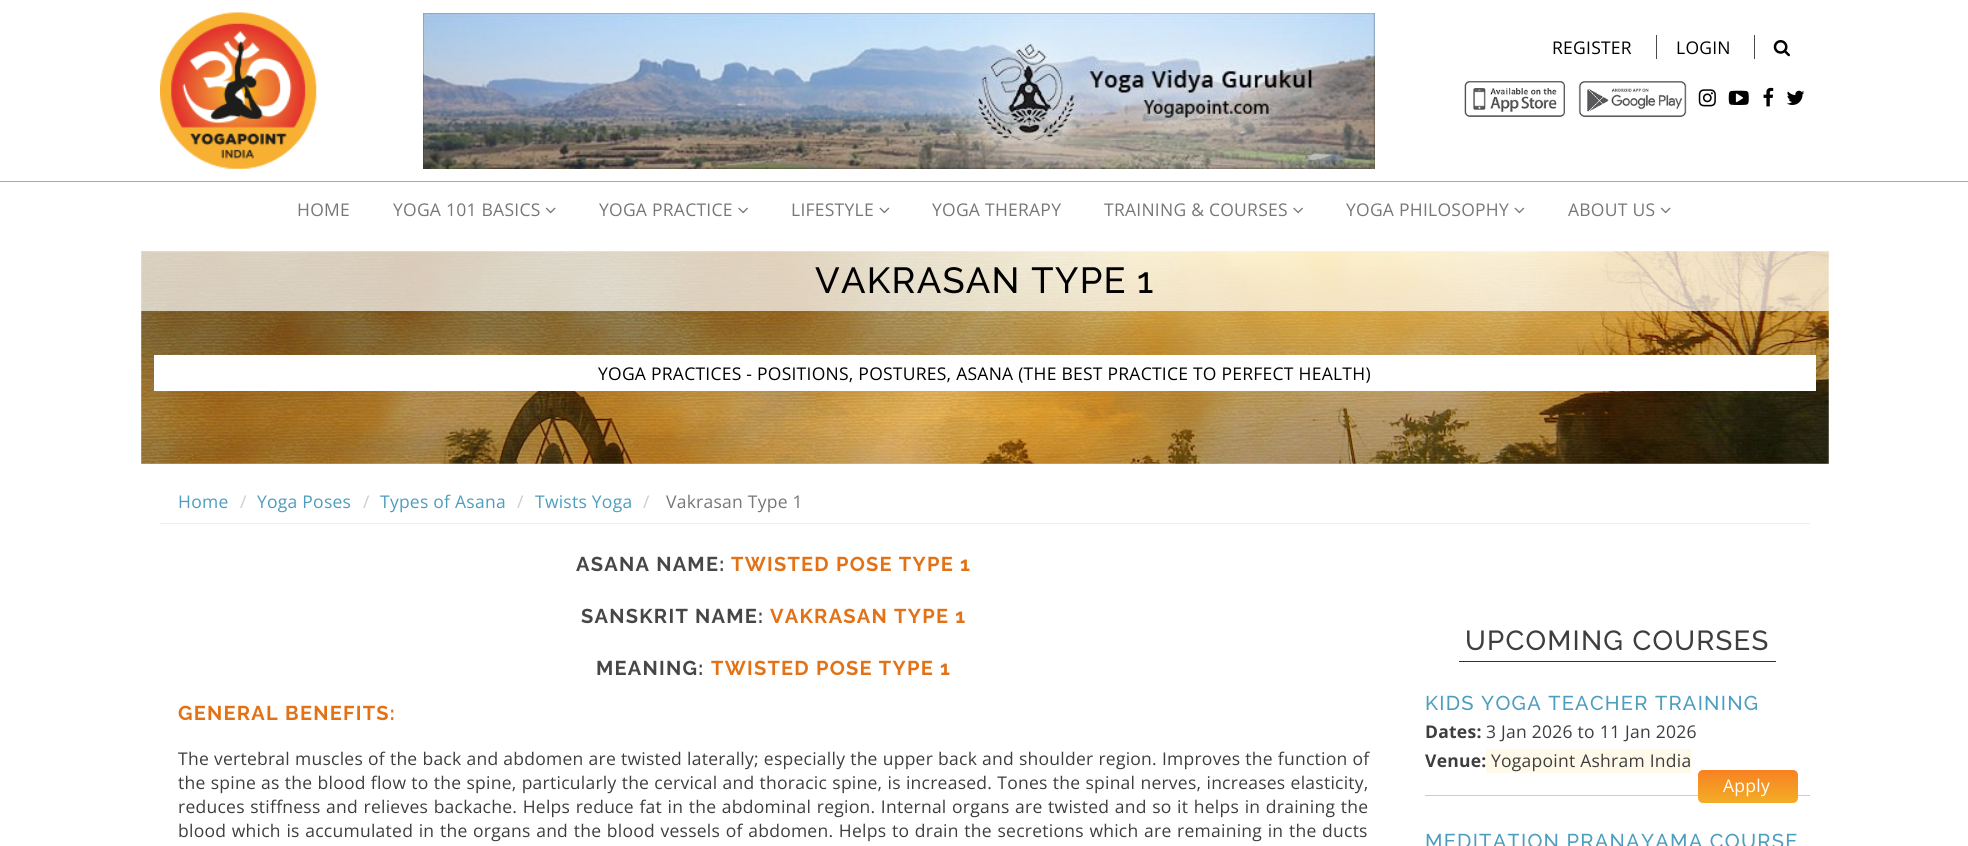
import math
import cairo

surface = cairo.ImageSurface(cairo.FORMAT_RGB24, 1968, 846)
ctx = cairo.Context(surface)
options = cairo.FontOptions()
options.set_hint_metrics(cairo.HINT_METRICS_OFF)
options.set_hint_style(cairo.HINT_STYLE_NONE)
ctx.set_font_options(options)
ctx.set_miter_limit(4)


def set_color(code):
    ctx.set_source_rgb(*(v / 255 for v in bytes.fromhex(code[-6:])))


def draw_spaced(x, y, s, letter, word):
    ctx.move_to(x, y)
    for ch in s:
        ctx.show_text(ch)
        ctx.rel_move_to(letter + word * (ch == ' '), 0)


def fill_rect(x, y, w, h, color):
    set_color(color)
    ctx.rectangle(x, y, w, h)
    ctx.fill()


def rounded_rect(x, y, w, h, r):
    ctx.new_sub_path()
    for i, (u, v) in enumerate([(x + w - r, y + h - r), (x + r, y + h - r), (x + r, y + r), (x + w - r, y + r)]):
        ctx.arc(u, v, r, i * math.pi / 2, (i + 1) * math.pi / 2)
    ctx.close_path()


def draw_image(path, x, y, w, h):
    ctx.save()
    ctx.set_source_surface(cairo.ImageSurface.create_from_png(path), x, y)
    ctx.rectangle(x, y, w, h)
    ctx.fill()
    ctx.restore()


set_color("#ffffff")
ctx.paint()
fill_rect(0, 181, 1968, 1, "#a9a9a9")
draw_image("assets/img1.png", 160, 12, 157, 157)
draw_image("assets/img2.png", 423, 13, 952, 156)
ctx.select_font_face("Open Sans")
ctx.set_font_size(17.5)
set_color("#000000")
draw_spaced(1552, 54, "REGISTER", 0.25, 0)
fill_rect(1656, 35, 1, 24, "#4c4b4b")
set_color("#000000")
draw_spaced(1676, 54, "LOGIN", 0.25, 0)
fill_rect(1754, 35, 1, 24, "#4c4b4b")
draw_image("assets/img3.png", 1773, 40, 17, 17)
draw_image("assets/img4.png", 1464, 81, 101, 36)
draw_image("assets/img5.png", 1578, 81, 109, 37)
draw_image("assets/img6.png", 1698, 89, 18, 18)
draw_image("assets/img7.png", 1728, 90, 21, 15)
draw_image("assets/img8.png", 1763, 87, 11, 20)
draw_image("assets/img9.png", 1787, 90, 18, 15)
set_color("#777777")
draw_spaced(297, 216, "HOME", 0.25, 0)
draw_spaced(393, 216, "YOGA 101 BASICS", 0.25, 0)
draw_image("assets/img10.png", 545, 207, 11, 7)
draw_spaced(599, 216, "YOGA PRACTICE", 0.25, 0)
draw_image("assets/img11.png", 738, 207, 10, 7)
draw_spaced(791, 216, "LIFESTYLE", 0.25, 0)
draw_image("assets/img12.png", 879, 207, 11, 7)
draw_spaced(932, 216, "YOGA THERAPY", 0.25, 0)
draw_spaced(1104, 216, "TRAINING & COURSES", 0.25, 0)
draw_image("assets/img11.png", 1293, 207, 10, 7)
draw_spaced(1346, 216, "YOGA PHILOSOPHY", 0.25, 0)
draw_image("assets/img12.png", 1514, 207, 11, 7)
draw_spaced(1568, 216, "ABOUT US", 0.25, 0)
draw_image("assets/img10.png", 1660, 207, 11, 7)
fill_rect(141, 251, 1688, 213, "#eeeeee")
draw_image("assets/img13.png", 141, 251, 1688, 213)
ctx.set_source_rgba(1, 1, 1, 0.7)
ctx.rectangle(141, 251, 1688, 60)
ctx.fill()
ctx.select_font_face("Raleway Medium")
ctx.set_font_size(36.25)
set_color("#000000")
draw_spaced(815, 293, "VAKRASAN TYPE 1", 1.25, 0)
fill_rect(154, 355, 1662, 36, "#ffffff")
ctx.select_font_face("Open Sans")
ctx.set_font_size(17.5)
set_color("#000000")
draw_spaced(598, 380, "YOGA PRACTICES - POSITIONS, POSTURES, ASANA (THE BEST PRACTICE TO PERFECT HEALTH)", 0.25, 0)
fill_rect(160, 523, 1650, 1, "#eeeeee")
set_color("#4c9dbe")
draw_spaced(178, 508, "Home", 0.25, 0)
set_color("#cccccc")
draw_spaced(240, 508, "/", 0.25, 0)
set_color("#4c9dbe")
draw_spaced(257, 508, "Yoga Poses", 0.25, 0)
set_color("#cccccc")
draw_spaced(363, 508, "/", 0.25, 0)
set_color("#4c9dbe")
draw_spaced(380, 508, "Types of Asana", 0.25, 0)
set_color("#cccccc")
draw_spaced(517, 508, "/", 0.25, 0)
set_color("#4c9dbe")
draw_spaced(535, 508, "Twists Yoga", 0.25, 0)
set_color("#cccccc")
draw_spaced(643, 508, "/", 0.25, 0)
set_color("#777777")
draw_spaced(666, 508, "Vakrasan Type 1", 0.25, 0)
ctx.select_font_face("Raleway", cairo.FONT_SLANT_NORMAL, cairo.FONT_WEIGHT_BOLD)
ctx.set_font_size(20)
set_color("#474747")
draw_spaced(576, 571, "ASANA NAME:", 1.25, 0)
set_color("#e37217")
draw_spaced(731, 571, "TWISTED POSE TYPE 1", 1.25, 0)
set_color("#474747")
draw_spaced(581, 623, "SANSKRIT NAME:", 1.25, 0)
set_color("#e37217")
draw_spaced(770, 623, "VAKRASAN TYPE 1", 1.25, 0)
set_color("#474747")
draw_spaced(596, 675, "MEANING:", 1.25, 0)
set_color("#e37217")
draw_spaced(711, 675, "TWISTED POSE TYPE 1", 1.25, 0)
draw_spaced(178, 720, "GENERAL BENEFITS:", 1.25, 0)
ctx.select_font_face("Open Sans")
ctx.set_font_size(17.5)
set_color("#3e3e3e")
draw_spaced(178, 765, "The vertebral muscles of the back and abdomen are twisted laterally; especially the upper back and shoulder region. Improves the function of", 0.25, 0.2)
draw_spaced(178, 789, "the spine as the blood flow to the spine, particularly the cervical and thoracic spine, is increased. Tones the spinal nerves, increases elasticity,", 0.25, 0.35)
draw_spaced(178, 813, "reduces stiffness and relieves backache. Helps reduce fat in the abdominal region. Internal organs are twisted and so it helps in draining the", 0.25, 0.75)
draw_spaced(178, 837, "blood which is accumulated in the organs and the blood vessels of abdomen. Helps to drain the secretions which are remaining in the ducts", 0.25, 0.8)
fill_rect(1459, 661, 317, 1, "#323232")
ctx.select_font_face("Raleway Medium")
ctx.set_font_size(27.5)
set_color("#3e3e3e")
draw_spaced(1465, 650, "UPCOMING COURSES", 1.25, 0)
fill_rect(1425, 795, 385, 1, "#cccccc")
ctx.set_font_size(20)
set_color("#4c9dbe")
draw_spaced(1425, 710, "KIDS YOGA TEACHER TRAINING", 1.25, 0)
ctx.select_font_face("Open Sans", cairo.FONT_SLANT_NORMAL, cairo.FONT_WEIGHT_BOLD)
ctx.set_font_size(17.5)
set_color("#3e3e3e")
draw_spaced(1425, 738, "Dates:", 0.25, 0)
ctx.select_font_face("Open Sans")
draw_spaced(1486, 738, "3 Jan 2026 to 11 Jan 2026", 0.25, 0)
fill_rect(1486, 749, 205, 24, "#fff9ea")
ctx.select_font_face("Open Sans", cairo.FONT_SLANT_NORMAL, cairo.FONT_WEIGHT_BOLD)
set_color("#3e3e3e")
draw_spaced(1425, 767, "Venue:", 0.25, 0)
ctx.select_font_face("Open Sans")
draw_spaced(1491, 767, "Yogapoint Ashram India", 0.25, 0)
gradient = cairo.LinearGradient(1748, 770, 1748, 803)
gradient.add_color_stop_rgba(0, 0.973, 0.506, 0.129, 1)
gradient.add_color_stop_rgba(1, 0.953, 0.678, 0.149, 1)
ctx.set_source(gradient)
rounded_rect(1698, 770, 100, 33, 5)
ctx.fill()
set_color("#ffffff")
draw_spaced(1723, 792, "Apply", 0.25, 0)
ctx.select_font_face("Raleway Medium")
ctx.set_font_size(20)
set_color("#4c9dbe")
draw_spaced(1425, 848, "MEDITATION PRANAYAMA COURSE", 1.25, 0)
surface.write_to_png("output.png")
